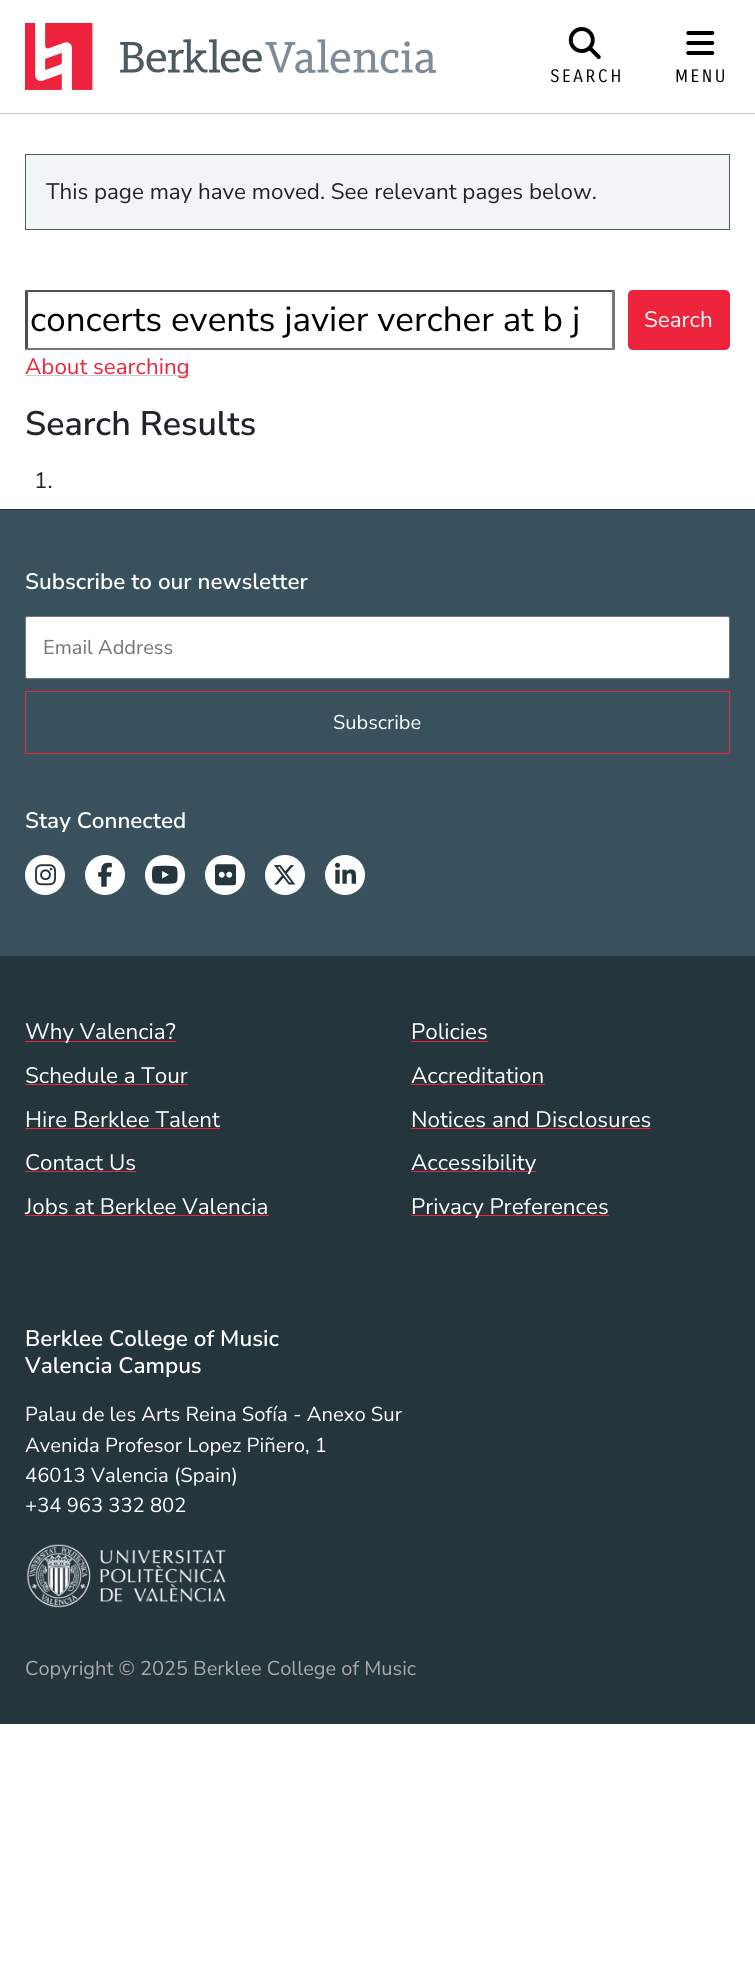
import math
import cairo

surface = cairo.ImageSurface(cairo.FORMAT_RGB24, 755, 1984)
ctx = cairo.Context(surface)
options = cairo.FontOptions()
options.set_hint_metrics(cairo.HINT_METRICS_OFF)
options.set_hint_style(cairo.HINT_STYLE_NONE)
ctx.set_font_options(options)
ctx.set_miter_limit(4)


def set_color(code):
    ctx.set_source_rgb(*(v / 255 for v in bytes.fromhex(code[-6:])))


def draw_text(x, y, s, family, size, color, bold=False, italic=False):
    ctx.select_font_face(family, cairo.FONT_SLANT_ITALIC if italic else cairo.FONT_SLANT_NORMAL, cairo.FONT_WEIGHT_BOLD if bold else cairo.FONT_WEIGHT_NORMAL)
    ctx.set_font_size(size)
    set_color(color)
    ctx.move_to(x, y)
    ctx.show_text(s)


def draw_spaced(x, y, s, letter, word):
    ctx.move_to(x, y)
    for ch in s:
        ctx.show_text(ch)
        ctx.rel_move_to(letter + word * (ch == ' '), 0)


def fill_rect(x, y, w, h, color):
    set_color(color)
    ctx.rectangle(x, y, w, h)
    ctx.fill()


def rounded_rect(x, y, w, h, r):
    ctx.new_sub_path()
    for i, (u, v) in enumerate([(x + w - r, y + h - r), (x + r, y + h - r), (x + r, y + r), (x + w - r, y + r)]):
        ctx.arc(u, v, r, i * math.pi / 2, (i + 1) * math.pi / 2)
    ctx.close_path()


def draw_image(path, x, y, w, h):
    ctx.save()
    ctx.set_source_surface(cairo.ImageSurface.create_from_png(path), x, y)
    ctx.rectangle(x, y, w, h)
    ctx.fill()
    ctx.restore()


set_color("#ffffff")
ctx.paint()
fill_rect(0, 113, 755, 1, "#cccccc")
draw_image("assets/img1.png", 25, 23, 411, 67)
draw_image("assets/img2.png", 568, 27, 33, 32)
ctx.select_font_face("Carrois Gothic")
ctx.set_font_size(17.5)
set_color("#000000")
draw_spaced(550, 82, "SEARCH", 2.5, 0)
draw_image("assets/img3.png", 686, 31, 29, 24)
draw_spaced(675, 82, "MENU", 2.5, 0)
set_color("#f1f5f6")
ctx.rectangle(25.5, 154.5, 704, 75)
ctx.fill_preserve()
set_color("#4c5960")
ctx.set_line_width(1)
ctx.stroke()
draw_text(46, 199, "This page may have moved. See relevant pages below.", "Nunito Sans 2 ExtraLight", 22.4, "#212529")
set_color("#4f4f4f")
ctx.new_path()
ctx.move_to(25, 290)
ctx.line_to(615, 290)
ctx.line_to(612, 292)
ctx.line_to(28, 292)
ctx.close_path()
ctx.fill()
set_color("#767676")
ctx.new_path()
ctx.move_to(615, 290)
ctx.line_to(615, 350)
ctx.line_to(612, 348)
ctx.line_to(612, 292)
ctx.close_path()
ctx.fill()
ctx.new_path()
ctx.move_to(615, 350)
ctx.line_to(25, 350)
ctx.line_to(28, 348)
ctx.line_to(612, 348)
ctx.close_path()
ctx.fill()
set_color("#4f4f4f")
ctx.new_path()
ctx.move_to(25, 350)
ctx.line_to(25, 290)
ctx.line_to(28, 292)
ctx.line_to(28, 348)
ctx.close_path()
ctx.fill()
draw_text(30, 331, "concerts events javier vercher at b j", "Nunito Sans 2 ExtraLight", 35, "#000000")
set_color("#ee243c")
rounded_rect(628, 290, 102, 60, 5)
ctx.fill()
draw_text(644, 327, "Search", "Nunito Sans 2 ExtraLight", 22.4, "#ffffff")
fill_rect(25, 375, 165, 1, "#cccccc")
draw_text(25, 374, "About searching", "Nunito Sans 2 ExtraLight", 22.4, "#ee243c")
draw_text(25, 435, "Search Results", "Nunito Sans ExtraLight", 34, "#212529")
draw_text(34, 488, "1.", "Nunito Sans 2 ExtraLight", 22.4, "#212529")
fill_rect(0, 509, 755, 1215, "#25353c")
fill_rect(0, 510, 755, 446, "#38515c")
draw_text(25, 589, "Subscribe to our newsletter", "Nunito Sans ExtraLight", 22.4, "#ffffff")
rounded_rect(25.5, 616.5, 704, 62, 2)
ctx.fill_preserve()
set_color("#767676")
ctx.stroke()
draw_text(43, 654, "Email Address", "Nunito Sans 2 ExtraLight", 20, "#757575")
ctx.rectangle(25.5, 691.5, 704, 62)
set_color("#ee243c")
ctx.stroke()
draw_text(333, 729, "Subscribe", "Nunito Sans 2 ExtraLight", 20, "#ffffff")
draw_text(25, 828, "Stay Connected", "Nunito Sans ExtraLight", 22.4, "#ffffff")
ctx.new_path()
ctx.arc(45, 875, 20, 0, 2 * math.pi)
ctx.fill()
draw_image("assets/img4.png", 35, 864, 21, 22)
ctx.arc(105, 875, 20, 0, 2 * math.pi)
ctx.fill()
draw_image("assets/img5.png", 98, 862, 14, 25)
ctx.arc(165, 875, 20, 0, 2 * math.pi)
ctx.fill()
draw_image("assets/img6.png", 151, 865, 27, 19)
ctx.arc(225, 875, 20, 0, 2 * math.pi)
ctx.fill()
draw_image("assets/img7.png", 215, 864, 21, 22)
ctx.arc(285, 875, 20, 0, 2 * math.pi)
ctx.fill()
draw_image("assets/img8.png", 273, 865, 23, 20)
ctx.arc(345, 875, 20, 0, 2 * math.pi)
ctx.fill()
draw_image("assets/img9.png", 335, 862, 21, 22)
fill_rect(25, 1041, 151, 1, "#ee243c")
draw_text(25, 1039, "Why Valencia?", "Nunito Sans 2 ExtraLight", 22.4, "#ffffff")
draw_text(25, 1083, "Schedule a Tour", "Nunito Sans 2 ExtraLight", 22.4, "#ffffff")
fill_rect(25, 1084, 163, 1, "#ee243c")
draw_text(25, 1127, "Hire Berklee Talent", "Nunito Sans 2 ExtraLight", 22.4, "#ffffff")
fill_rect(25, 1128, 195, 1, "#ee243c")
draw_text(25, 1170, "Contact Us", "Nunito Sans 2 ExtraLight", 22.4, "#ffffff")
fill_rect(25, 1171, 111, 1, "#ee243c")
draw_text(25, 1214, "Jobs at Berklee Valencia", "Nunito Sans 2 ExtraLight", 22.4, "#ffffff")
fill_rect(25, 1215, 244, 1, "#ee243c")
draw_text(411, 1039, "Policies", "Nunito Sans 2 ExtraLight", 22.4, "#ffffff")
fill_rect(411, 1041, 77, 1, "#ee243c")
draw_text(411, 1083, "Accreditation", "Nunito Sans 2 ExtraLight", 22.4, "#ffffff")
fill_rect(411, 1084, 134, 1, "#ee243c")
draw_text(411, 1127, "Notices and Disclosures", "Nunito Sans 2 ExtraLight", 22.4, "#ffffff")
fill_rect(411, 1128, 240, 1, "#ee243c")
fill_rect(411, 1171, 125, 1, "#ee243c")
draw_text(411, 1170, "Accessibility", "Nunito Sans 2 ExtraLight", 22.4, "#ffffff")
fill_rect(411, 1215, 198, 1, "#ee243c")
draw_text(411, 1214, "Privacy Preferences", "Nunito Sans 2 ExtraLight", 22.4, "#ffffff")
draw_text(25, 1346, "Berklee College of Music", "Nunito Sans ExtraLight", 22.4, "#ffffff")
draw_text(25, 1373, "Valencia Campus", "Nunito Sans ExtraLight", 22.4, "#ffffff")
draw_text(25, 1421, "Palau de les Arts Reina Sofía - Anexo Sur", "Nunito Sans 2 ExtraLight", 20.25, "#ffffff")
draw_text(25, 1452, "Avenida Profesor Lopez Piñero, 1", "Nunito Sans 2 ExtraLight", 20.25, "#ffffff")
draw_text(25, 1482, "46013 Valencia (Spain)", "Nunito Sans 2 ExtraLight", 20.25, "#ffffff")
draw_text(25, 1512, "+34 963 332 802", "Nunito Sans 2 ExtraLight", 20.25, "#ffffff")
draw_image("assets/img10.png", 26, 1544, 200, 64)
draw_text(25, 1675, "Copyright © 2025 Berklee College of Music", "Nunito Sans 2 ExtraLight", 20, "#aaaaaa")
surface.write_to_png("output.png")
